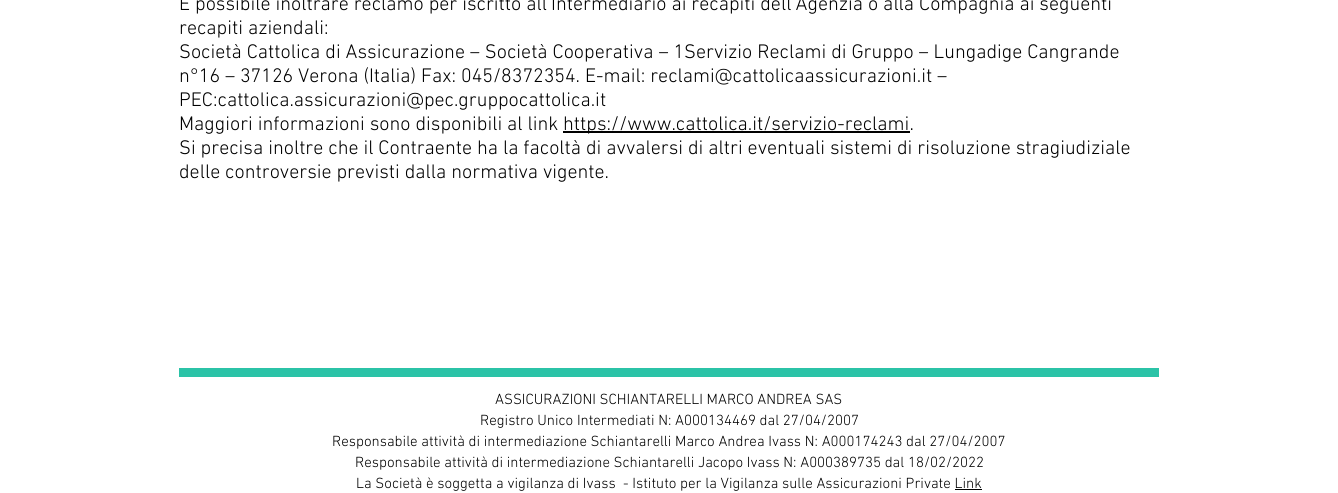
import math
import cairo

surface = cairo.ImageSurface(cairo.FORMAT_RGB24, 1338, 493)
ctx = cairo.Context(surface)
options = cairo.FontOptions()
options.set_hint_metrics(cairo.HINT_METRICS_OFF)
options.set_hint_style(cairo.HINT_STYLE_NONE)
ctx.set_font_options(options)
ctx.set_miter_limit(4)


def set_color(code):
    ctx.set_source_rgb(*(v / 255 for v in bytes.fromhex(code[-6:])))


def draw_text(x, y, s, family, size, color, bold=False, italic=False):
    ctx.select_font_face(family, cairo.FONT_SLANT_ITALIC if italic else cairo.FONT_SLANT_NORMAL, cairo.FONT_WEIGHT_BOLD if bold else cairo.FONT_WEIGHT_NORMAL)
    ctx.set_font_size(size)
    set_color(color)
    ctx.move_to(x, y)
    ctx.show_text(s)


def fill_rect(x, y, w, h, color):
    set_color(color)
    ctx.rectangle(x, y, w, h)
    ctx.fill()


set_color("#ffffff")
ctx.paint()
draw_text(179, 10, "È possibile inoltrare reclamo per iscritto all’Intermediario ai recapiti dell’Agenzia o alla Compagnia ai seguenti", "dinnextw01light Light", 20, "#000000")
draw_text(179, 34, "recapiti aziendali:", "dinnextw01light Light", 20, "#000000")
draw_text(179, 58, "Società Cattolica di Assicurazione – Società Cooperativa – 1Servizio Reclami di Gruppo – Lungadige Cangrande", "dinnextw01light Light", 20, "#000000")
draw_text(179, 82, "n°16 – 37126 Verona (Italia) Fax: 045/8372354. E-mail: reclami@cattolicaassicurazioni.it –", "dinnextw01light Light", 20, "#000000")
draw_text(179, 106, "PEC:cattolica.assicurazioni@pec.gruppocattolica.it", "dinnextw01light Light", 20, "#000000")
draw_text(179, 130, "Maggiori informazioni sono disponibili al link", "dinnextw01light Light", 20, "#000000")
fill_rect(563, 131, 347, 2, "#000000")
draw_text(563, 130, "https://www.cattolica.it/servizio-reclami.", "dinnextw01light Light", 20, "#000000")
draw_text(179, 154, "Si precisa inoltre che il Contraente ha la facoltà di avvalersi di altri eventuali sistemi di risoluzione stragiudiziale", "dinnextw01light Light", 20, "#000000")
draw_text(179, 178, "delle controversie previsti dalla normativa vigente.", "dinnextw01light Light", 20, "#000000")
fill_rect(179, 368, 980, 9, "#2bc3a7")
draw_text(495, 404, "ASSICURAZIONI SCHIANTARELLI MARCO ANDREA SAS", "dinnextw01light Light", 15, "#000000")
draw_text(480, 425, "Registro Unico Intermediati N: A000134469 dal 27/04/2007", "dinnextw01light Light", 15, "#000000")
draw_text(332, 446, "Responsabile attività di intermediazione Schiantarelli Marco Andrea Ivass N: A000174243 dal 27/04/2007", "dinnextw01light Light", 15, "#000000")
draw_text(355, 467, "Responsabile attività di intermediazione Schiantarelli Jacopo Ivass N: A000389735 dal 18/02/2022", "dinnextw01light Light", 15, "#000000")
draw_text(356, 488, "La Società è soggetta a vigilanza di Ivass  - Istituto per la Vigilanza sulle Assicurazioni Private Link", "dinnextw01light Light", 15, "#000000")
fill_rect(955, 489, 27, 1, "#000000")
surface.write_to_png("output.png")
